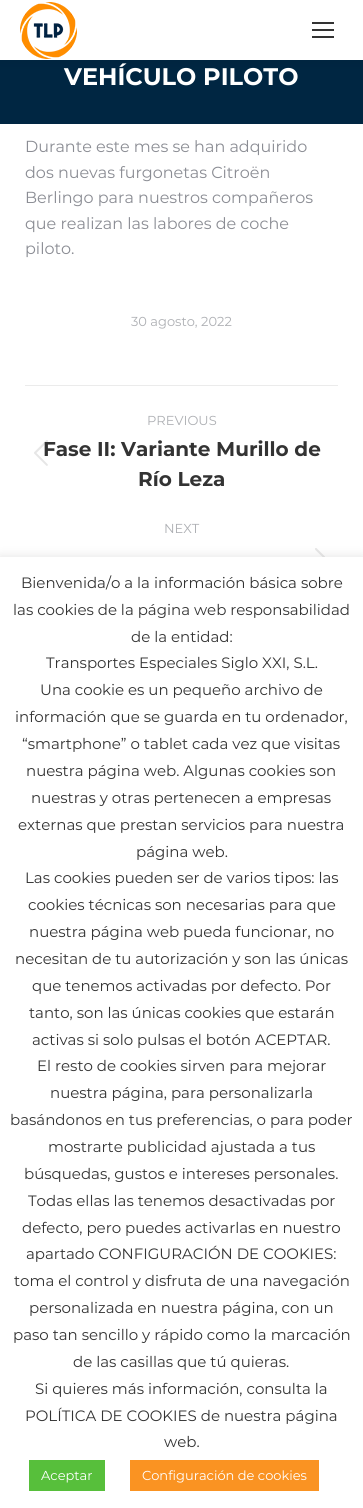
import math
import cairo

surface = cairo.ImageSurface(cairo.FORMAT_RGB24, 363, 1508)
ctx = cairo.Context(surface)
options = cairo.FontOptions()
options.set_hint_metrics(cairo.HINT_METRICS_OFF)
options.set_hint_style(cairo.HINT_STYLE_NONE)
ctx.set_font_options(options)
ctx.set_miter_limit(4)


def set_color(code):
    ctx.set_source_rgb(*(v / 255 for v in bytes.fromhex(code[-6:])))


def draw_text(x, y, s, family, size, color, bold=False, italic=False):
    ctx.select_font_face(family, cairo.FONT_SLANT_ITALIC if italic else cairo.FONT_SLANT_NORMAL, cairo.FONT_WEIGHT_BOLD if bold else cairo.FONT_WEIGHT_NORMAL)
    ctx.set_font_size(size)
    set_color(color)
    ctx.move_to(x, y)
    ctx.show_text(s)


def fill_rect(x, y, w, h, color):
    set_color(color)
    ctx.rectangle(x, y, w, h)
    ctx.fill()


def rounded_rect(x, y, w, h, r):
    ctx.new_sub_path()
    for i, (u, v) in enumerate([(x + w - r, y + h - r), (x + r, y + h - r), (x + r, y + r), (x + w - r, y + r)]):
        ctx.arc(u, v, r, i * math.pi / 2, (i + 1) * math.pi / 2)
    ctx.close_path()


def draw_shadow(x, y, w, h, r, blur, alpha):
    ctx.push_group_with_content(cairo.CONTENT_ALPHA)
    ctx.set_operator(cairo.OPERATOR_SOURCE)
    for i in range(15, -16, -2):
        e = blur * i / 6
        if min(w, h) + 2 * e > 0:
            ctx.set_source_rgba(0, 0, 0, alpha * math.erfc((i - 1) / 8.5) / 2)
            rounded_rect(x - e, y - e, w + 2 * e, h + 2 * e, max(0, min(r + e + blur * .6, min(w, h) / 2 + e)))
            ctx.fill()
    ctx.mask(ctx.pop_group())


def draw_image(path, x, y, w, h):
    ctx.save()
    ctx.set_source_surface(cairo.ImageSurface.create_from_png(path), x, y)
    ctx.rectangle(x, y, w, h)
    ctx.fill()
    ctx.restore()


set_color("#ffffff")
ctx.paint()
fill_rect(0, 60, 363, 64, "#002642")
set_color("#000000")
draw_shadow(-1, -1, 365, 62, 0, 7.5, 0.07)
fill_rect(0, 0, 363, 60, "#ffffff")
draw_image("assets/img1.png", 20, 2, 57, 57)
fill_rect(312, 22, 22, 2, "#333333")
fill_rect(312, 29, 22, 2, "#333333")
fill_rect(312, 36, 22, 2, "#333333")
draw_text(64, 85, "VEHÍCULO PILOTO", "Montserrat", 24, "#ffffff", bold=True)
draw_text(25, 152, "Durante este mes se han adquirido", "Montserrat", 16, "#8b8d94")
draw_text(25, 178, "dos nuevas furgonetas Citroën", "Montserrat", 16, "#8b8d94")
draw_text(25, 203, "Berlingo para nuestros compañeros", "Montserrat", 16, "#8b8d94")
draw_text(25, 229, "que realizan las labores de coche", "Montserrat", 16, "#8b8d94")
draw_text(25, 254, "piloto.", "Montserrat", 16, "#8b8d94")
draw_text(131, 326, "30 agosto, 2022", "Montserrat", 13, "#adafb3")
fill_rect(25, 385, 313, 1, "#ebebeb")
draw_text(147, 425, "PREVIOUS", "Montserrat", 13, "#adafb3")
draw_text(43, 456, "Fase II: Variante Murillo de", "Montserrat", 20, "#333333", bold=True)
draw_image("assets/img2.png", 34, 440, 14, 26)
draw_text(138, 486, "Río Leza", "Montserrat", 20, "#333333", bold=True)
draw_text(164, 533, "NEXT", "Montserrat", 13, "#adafb3")
draw_image("assets/img3.png", 315, 548, 10, 9)
set_color("#acabab")
draw_shadow(0, 556, 363, 951, 0, 5, 0.3)
fill_rect(0, 557, 363, 951, "#ffffff")
draw_text(21, 588, "Bienvenida/o a la información básica sobre", "Montserrat", 15, "#333333")
draw_text(13, 615, "las cookies de la página web responsabilidad", "Montserrat", 15, "#333333")
draw_text(131, 642, "de la entidad:", "Montserrat", 15, "#333333")
draw_text(46, 668, "Transportes Especiales Siglo XXI, S.L.", "Montserrat", 15, "#333333")
draw_text(40, 695, "Una cookie es un pequeño archivo de", "Montserrat", 15, "#333333")
draw_text(15, 722, "información que se guarda en tu ordenador,", "Montserrat", 15, "#333333")
draw_text(22, 749, "“smartphone” o tablet cada vez que visitas", "Montserrat", 15, "#333333")
draw_text(26, 776, "nuestra página web. Algunas cookies son", "Montserrat", 15, "#333333")
draw_text(31, 803, "nuestras y otras pertenecen a empresas", "Montserrat", 15, "#333333")
draw_text(18, 830, "externas que prestan servicios para nuestra", "Montserrat", 15, "#333333")
draw_text(136, 857, "página web.", "Montserrat", 15, "#333333")
draw_text(25, 883, "Las cookies pueden ser de varios tipos: las", "Montserrat", 15, "#333333")
draw_text(28, 910, "cookies técnicas son necesarias para que", "Montserrat", 15, "#333333")
draw_text(29, 937, "nuestra página web pueda funcionar, no", "Montserrat", 15, "#333333")
draw_text(15, 964, "necesitan de tu autorización y son las únicas", "Montserrat", 15, "#333333")
draw_text(32, 991, "que tenemos activadas por defecto. Por", "Montserrat", 15, "#333333")
draw_text(29, 1018, "tanto, son las únicas cookies que estarán", "Montserrat", 15, "#333333")
draw_text(32, 1045, "activas si solo pulsas el botón ACEPTAR.", "Montserrat", 15, "#333333")
draw_text(37, 1071, "El resto de cookies sirven para mejorar", "Montserrat", 15, "#333333")
draw_text(50, 1098, "nuestra página, para personalizarla", "Montserrat", 15, "#333333")
draw_text(10, 1125, "basándonos en tus preferencias, o para poder", "Montserrat", 15, "#333333")
draw_text(48, 1152, "mostrarte publicidad ajustada a tus", "Montserrat", 15, "#333333")
draw_text(24, 1179, "búsquedas, gustos e intereses personales.", "Montserrat", 15, "#333333")
draw_text(28, 1206, "Todas ellas las tenemos desactivadas por", "Montserrat", 15, "#333333")
draw_text(22, 1233, "defecto, pero puedes activarlas en nuestro", "Montserrat", 15, "#333333")
draw_text(26, 1259, "apartado CONFIGURACIÓN DE COOKIES:", "Montserrat", 15, "#333333")
draw_text(14, 1286, "toma el control y disfruta de una navegación", "Montserrat", 15, "#333333")
draw_text(29, 1313, "personalizada en nuestra página, con un", "Montserrat", 15, "#333333")
draw_text(13, 1340, "paso tan sencillo y rápido como la marcación", "Montserrat", 15, "#333333")
draw_text(73, 1367, "de las casillas que tú quieras.", "Montserrat", 15, "#333333")
draw_text(35, 1394, "Si quieres más información, consulta la", "Montserrat", 15, "#333333")
draw_text(25, 1421, "POLÍTICA DE COOKIES de nuestra página", "Montserrat", 15, "#333333")
draw_text(164, 1447, "web.", "Montserrat", 15, "#333333")
fill_rect(29, 1460, 76, 31, "#57bf3b")
draw_text(41, 1480, "Aceptar", "Montserrat", 13, "#ffffff")
fill_rect(130, 1460, 189, 31, "#fa9322")
draw_text(142, 1480, "Configuración de cookies", "Montserrat", 13, "#ffffff")
surface.write_to_png("output.png")
